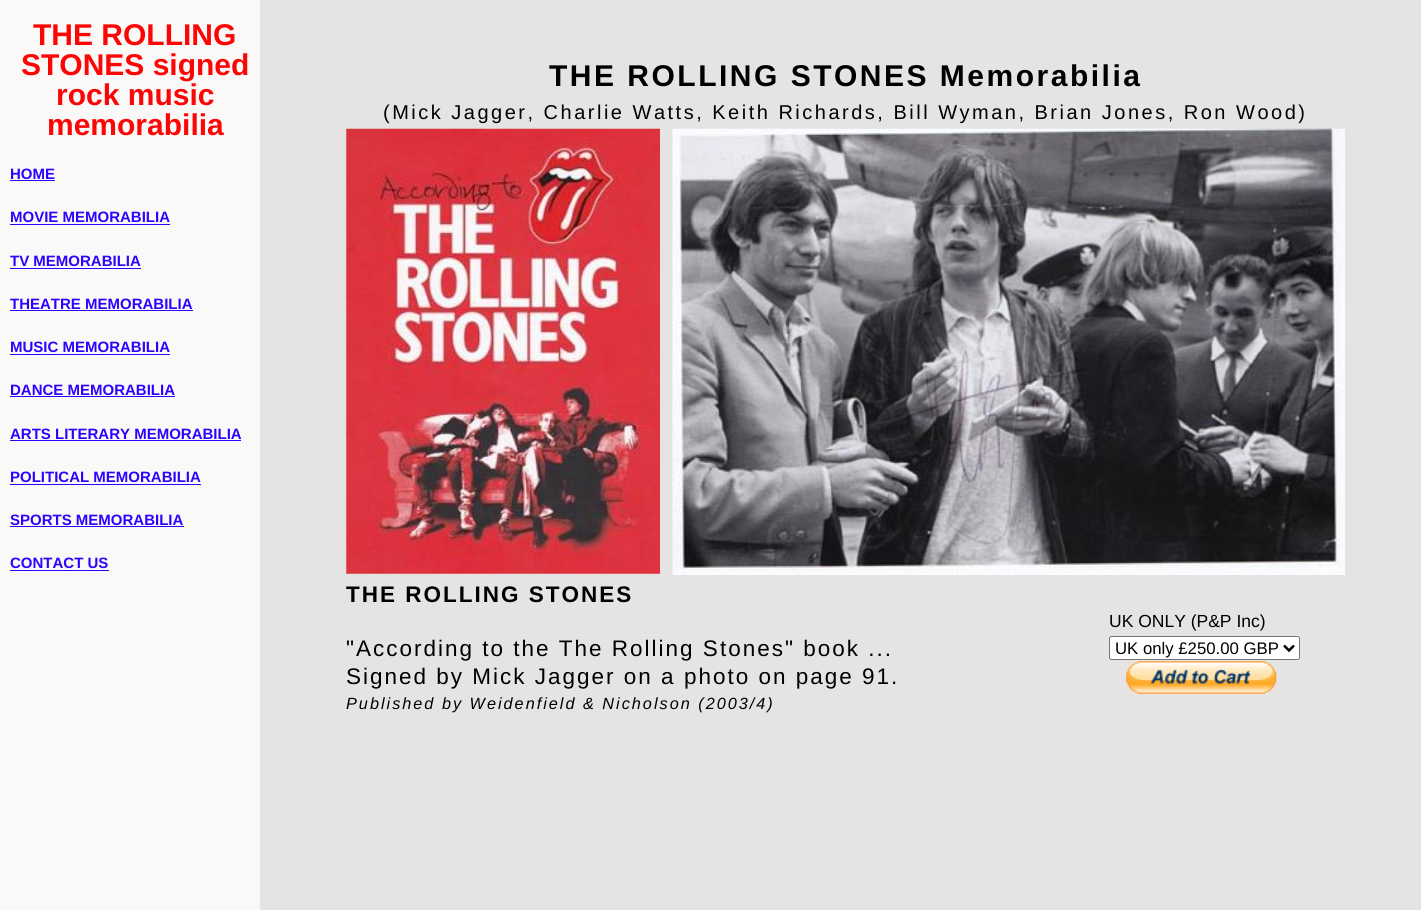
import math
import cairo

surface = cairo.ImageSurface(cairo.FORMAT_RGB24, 1421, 910)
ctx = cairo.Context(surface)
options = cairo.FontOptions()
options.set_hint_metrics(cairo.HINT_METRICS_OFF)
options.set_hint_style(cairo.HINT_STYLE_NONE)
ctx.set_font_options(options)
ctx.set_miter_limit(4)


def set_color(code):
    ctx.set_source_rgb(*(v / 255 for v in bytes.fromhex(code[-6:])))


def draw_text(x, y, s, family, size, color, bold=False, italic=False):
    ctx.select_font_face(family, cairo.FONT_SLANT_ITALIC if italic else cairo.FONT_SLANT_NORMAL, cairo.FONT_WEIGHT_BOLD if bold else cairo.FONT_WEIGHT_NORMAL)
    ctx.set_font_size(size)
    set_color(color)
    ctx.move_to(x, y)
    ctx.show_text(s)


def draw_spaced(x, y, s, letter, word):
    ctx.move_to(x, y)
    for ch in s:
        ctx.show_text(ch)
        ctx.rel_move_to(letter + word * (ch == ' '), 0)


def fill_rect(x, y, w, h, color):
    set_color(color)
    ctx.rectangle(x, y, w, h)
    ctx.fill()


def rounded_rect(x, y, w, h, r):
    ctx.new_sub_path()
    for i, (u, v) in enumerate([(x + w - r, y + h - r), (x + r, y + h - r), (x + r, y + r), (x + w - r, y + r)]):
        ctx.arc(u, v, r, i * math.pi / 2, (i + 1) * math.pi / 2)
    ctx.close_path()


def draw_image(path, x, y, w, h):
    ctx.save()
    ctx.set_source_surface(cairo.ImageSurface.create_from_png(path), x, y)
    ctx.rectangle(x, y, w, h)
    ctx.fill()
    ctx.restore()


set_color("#e6e3e3")
ctx.paint()
fill_rect(0, 0, 260, 910, "#fbf8f8")
draw_text(33, 45, "THE ROLLING", "Liberation Sans", 30, "#fc0505", bold=True)
draw_text(21, 75, "STONES signed", "Liberation Sans", 30, "#fc0505", bold=True)
draw_text(56, 105, "rock music", "Liberation Sans", 30, "#fc0505", bold=True)
draw_text(47, 135, "memorabilia", "Liberation Sans", 30, "#fc0505", bold=True)
draw_text(10, 179, "HOME", "Liberation Sans", 15, "#2d03ff", bold=True)
fill_rect(10, 180, 45, 1, "#2d03ff")
draw_text(10, 222, "MOVIE MEMORABILIA", "Liberation Sans", 15, "#2d03ff", bold=True)
fill_rect(10, 224, 160, 1, "#2d03ff")
draw_text(10, 266, "TV MEMORABILIA", "Liberation Sans", 15, "#2d03ff", bold=True)
fill_rect(10, 268, 131, 1, "#2d03ff")
draw_text(10, 309, "THEATRE MEMORABILIA", "Liberation Sans", 15, "#2d03ff", bold=True)
fill_rect(10, 310, 183, 1, "#2d03ff")
draw_text(10, 352, "MUSIC MEMORABILIA", "Liberation Sans", 15, "#2d03ff", bold=True)
fill_rect(10, 354, 160, 1, "#2d03ff")
draw_text(10, 395, "DANCE MEMORABILIA", "Liberation Sans", 15, "#2d03ff", bold=True)
fill_rect(10, 396, 165, 1, "#2d03ff")
draw_text(10, 439, "ARTS LITERARY MEMORABILIA", "Liberation Sans", 15, "#2d03ff", bold=True)
fill_rect(10, 440, 231, 1, "#2d03ff")
draw_text(10, 482, "POLITICAL MEMORABILIA", "Liberation Sans", 15, "#2d03ff", bold=True)
fill_rect(10, 484, 191, 1, "#2d03ff")
draw_text(10, 525, "SPORTS MEMORABILIA", "Liberation Sans", 15, "#2d03ff", bold=True)
fill_rect(10, 526, 174, 1, "#2d03ff")
draw_text(10, 568, "CONTACT US", "Liberation Sans", 15, "#2d03ff", bold=True)
fill_rect(10, 570, 99, 1, "#2d03ff")
ctx.set_font_size(30)
set_color("#000000")
draw_spaced(549, 86, "THE ROLLING STONES Memorabilia", 2.5, 0)
ctx.select_font_face("Liberation Sans")
ctx.set_font_size(20)
draw_spaced(383, 119, "(Mick Jagger, Charlie Watts, Keith Richards, Bill Wyman, Brian Jones, Ron Wood)", 2.5, 0)
draw_image("assets/img1.png", 346, 128, 314, 446)
draw_image("assets/img2.png", 672, 128, 673, 447)
ctx.select_font_face("Liberation Sans", cairo.FONT_SLANT_NORMAL, cairo.FONT_WEIGHT_BOLD)
ctx.set_font_size(22.5)
draw_spaced(346, 602, "THE ROLLING STONES", 2, 0)
ctx.select_font_face("Liberation Sans")
draw_spaced(346, 656, "\"According to the The Rolling Stones\" book ...", 2, 0)
draw_spaced(346, 684, "Signed by Mick Jagger on a photo on page 91.", 2, 0)
ctx.select_font_face("Liberation Sans", cairo.FONT_SLANT_ITALIC)
ctx.set_font_size(16.25)
draw_spaced(346, 709, "Published by Weidenfield & Nicholson (2003/4)", 2, 0)
draw_text(1109, 627, "UK ONLY (P&P Inc)", "Liberation Sans", 17.5, "#000000")
set_color("#ffffff")
rounded_rect(1109.5, 636.5, 190, 23, 2)
ctx.fill_preserve()
set_color("#767676")
ctx.set_line_width(1)
ctx.stroke()
ctx.new_path()
ctx.move_to(1284, 645.5)
ctx.line_to(1289, 650.5)
ctx.line_to(1294, 645.5)
set_color("#000000")
ctx.set_line_width(2.5)
ctx.stroke()
draw_text(1115, 654, "UK only £250.00 GBP", "Liberation Sans", 16.75, "#000000")
draw_image("assets/img3.png", 1126, 661, 151, 33)
surface.write_to_png("output.png")
